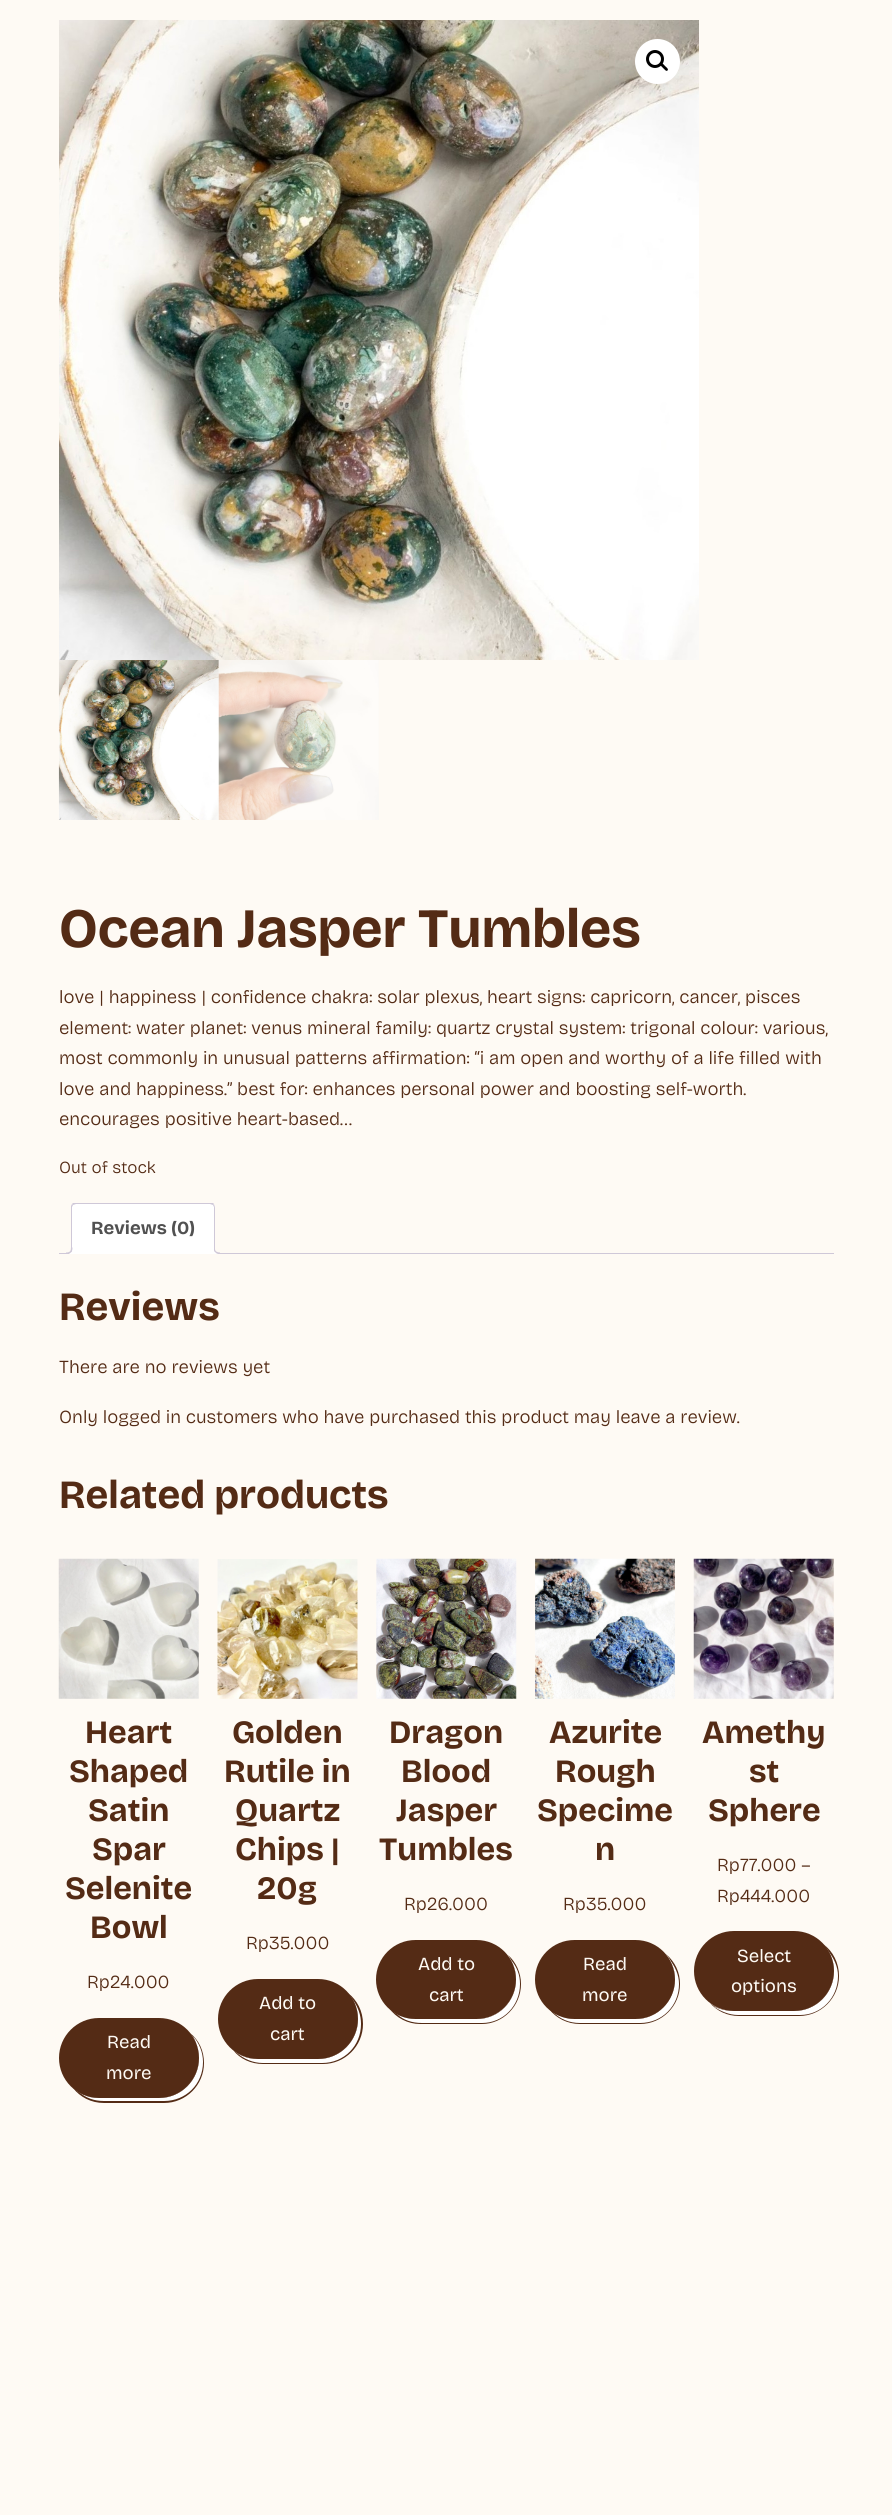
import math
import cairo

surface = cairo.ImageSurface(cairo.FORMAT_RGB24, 892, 2515)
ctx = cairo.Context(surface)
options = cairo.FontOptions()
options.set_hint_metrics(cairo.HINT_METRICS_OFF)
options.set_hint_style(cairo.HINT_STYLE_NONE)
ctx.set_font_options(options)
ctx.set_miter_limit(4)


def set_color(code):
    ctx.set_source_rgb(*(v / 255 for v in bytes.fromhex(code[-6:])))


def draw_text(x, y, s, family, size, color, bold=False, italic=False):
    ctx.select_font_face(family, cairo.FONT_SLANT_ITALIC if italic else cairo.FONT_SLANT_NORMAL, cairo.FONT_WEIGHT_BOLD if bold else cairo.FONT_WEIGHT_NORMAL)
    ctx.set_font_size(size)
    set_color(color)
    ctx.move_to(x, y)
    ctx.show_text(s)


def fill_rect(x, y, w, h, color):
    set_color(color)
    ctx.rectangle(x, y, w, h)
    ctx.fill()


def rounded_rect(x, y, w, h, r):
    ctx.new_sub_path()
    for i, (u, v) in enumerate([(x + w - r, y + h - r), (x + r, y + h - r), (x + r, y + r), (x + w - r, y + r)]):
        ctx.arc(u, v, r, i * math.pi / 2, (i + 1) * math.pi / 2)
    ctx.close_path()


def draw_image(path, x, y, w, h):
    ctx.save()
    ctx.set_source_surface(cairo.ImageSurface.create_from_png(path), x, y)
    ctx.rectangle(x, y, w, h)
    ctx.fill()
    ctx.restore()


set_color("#fefaf4")
ctx.paint()
draw_image("assets/img1.png", 59, 20, 640, 640)
set_color("#ffffff")
ctx.arc(657.5, 61.5, 22.5, 0, 2 * math.pi)
ctx.fill()
ctx.arc(655, 59, 7.5, 0, 2 * math.pi)
set_color("#000000")
ctx.set_line_width(3)
ctx.stroke()
ctx.new_path()
ctx.move_to(660.5, 63.5)
ctx.curve_to(662, 62, 664, 65, 665, 66)
ctx.curve_to(666, 67, 669, 69, 667.5, 70.5)
ctx.curve_to(666, 72, 664, 68.5, 663, 68)
ctx.curve_to(662.5, 67, 659, 65, 660.5, 63.5)
ctx.close_path()
ctx.fill()
draw_image("assets/img2.png", 58, 660, 161, 160)
draw_image("assets/img3.png", 218, 660, 161, 160)
draw_text(59, 947, "Ocean Jasper Tumbles", "Bricolage Grotesque", 55.5, "#542b15", bold=True)
draw_text(59, 1003, "love | happiness | confidence chakra: solar plexus, heart signs: capricorn, cancer, pisces", "Bricolage Grotesque Light", 18.5, "#542b15")
draw_text(59, 1034, "element: water planet: venus mineral family: quartz crystal system: trigonal colour: various,", "Bricolage Grotesque Light", 18.5, "#542b15")
draw_text(59, 1064, "most commonly in unusual patterns affirmation: “i am open and worthy of a life filled with", "Bricolage Grotesque Light", 18.5, "#542b15")
draw_text(59, 1095, "love and happiness.” best for: enhances personal power and boosting self-worth.", "Bricolage Grotesque Light", 18.5, "#542b15")
draw_text(59, 1125, "encourages positive heart-based…", "Bricolage Grotesque Light", 18.5, "#542b15")
draw_text(59, 1173, "Out of stock", "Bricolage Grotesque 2 Light", 17, "#542b15")
fill_rect(59, 1253, 775, 1, "#cfc8d8")
set_color("#ffffff")
ctx.new_path()
ctx.move_to(76, 1203)
ctx.line_to(210, 1203)
ctx.curve_to(213, 1203, 215, 1205, 215, 1208)
ctx.line_to(215, 1254)
ctx.line_to(71, 1254)
ctx.line_to(71, 1208)
ctx.curve_to(71, 1205, 73, 1203, 76, 1203)
ctx.close_path()
ctx.fill()
ctx.save()
ctx.rectangle(59, 1203, 775, 51)
ctx.clip()
set_color("#cfc8d8")
ctx.new_path()
ctx.move_to(76, 1204)
ctx.line_to(73, 1205)
ctx.line_to(72, 1204)
ctx.line_to(74, 1202)
ctx.line_to(189, 1202)
ctx.curve_to(197, 1202, 208, 1197, 214, 1204)
ctx.line_to(213, 1205)
ctx.line_to(210, 1204)
ctx.close_path()
ctx.fill()
ctx.restore()
set_color("#cfc8d8")
ctx.new_path()
ctx.move_to(215, 1254)
ctx.line_to(215, 1208)
ctx.curve_to(215, 1206, 214, 1205, 214, 1204)
ctx.line_to(213, 1205)
ctx.line_to(214, 1207)
ctx.line_to(214, 1252)
ctx.line_to(213, 1252)
ctx.close_path()
ctx.fill()
set_color("#ffffff")
ctx.new_path()
ctx.move_to(215, 1254)
ctx.line_to(213, 1252)
ctx.line_to(73, 1252)
ctx.line_to(71, 1254)
ctx.close_path()
ctx.fill()
set_color("#cfc8d8")
ctx.new_path()
ctx.move_to(71, 1254)
ctx.line_to(71, 1206)
ctx.line_to(72, 1204)
ctx.line_to(73, 1205)
ctx.line_to(72, 1207)
ctx.line_to(72, 1252)
ctx.line_to(73, 1252)
ctx.close_path()
ctx.fill()
draw_text(91, 1234, "Reviews (0)", "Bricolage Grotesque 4", 18.5, "#515151", bold=True)
ctx.save()
ctx.rectangle(59, 1203, 775, 51)
ctx.clip()
set_color("#ffffff")
ctx.new_path()
ctx.move_to(69, 1253.5)
ctx.line_to(69, 1256)
ctx.curve_to(73, 1256, 75, 1254, 75, 1250)
ctx.line_to(72.5, 1250)
ctx.curve_to(72, 1251.5, 70.5, 1253, 69, 1253.5)
ctx.close_path()
ctx.fill()
ctx.restore()
set_color("#cfc8d8")
ctx.set_fill_rule(cairo.FILL_RULE_EVEN_ODD)
ctx.new_path()
ctx.move_to(66, 1247.5)
ctx.line_to(72.5, 1247.5)
ctx.curve_to(72.5, 1252, 70.5, 1254, 66, 1254)
ctx.close_path()
ctx.move_to(66, 1247.5)
ctx.line_to(71, 1247.5)
ctx.curve_to(71, 1251, 70, 1252.5, 66, 1252.5)
ctx.close_path()
ctx.fill()
ctx.save()
ctx.set_fill_rule(cairo.FILL_RULE_WINDING)
ctx.rectangle(59, 1203, 775, 51)
ctx.clip()
set_color("#ffffff")
ctx.new_path()
ctx.move_to(211, 1250)
ctx.curve_to(211, 1255, 213.5, 1256, 218, 1256)
ctx.line_to(218, 1253.5)
ctx.curve_to(216, 1253.5, 214.5, 1252, 214, 1250)
ctx.close_path()
ctx.fill()
ctx.restore()
ctx.new_path()
ctx.move_to(214, 1247.5)
ctx.line_to(220, 1247.5)
ctx.line_to(220, 1254)
ctx.curve_to(217, 1254, 214, 1252.5, 214, 1249)
ctx.close_path()
ctx.move_to(215, 1247.5)
ctx.line_to(220, 1247.5)
ctx.line_to(220, 1252.5)
ctx.curve_to(217.5, 1252.5, 215, 1251.5, 215, 1249)
ctx.close_path()
ctx.fill()
draw_text(59, 1320, "Reviews", "Bricolage Grotesque 2", 40, "#542b15", bold=True)
draw_text(59, 1373, "There are no reviews yet", "Bricolage Grotesque Light", 18.5, "#542b15")
draw_text(59, 1423, "Only logged in customers who have purchased this product may leave a review.", "Bricolage Grotesque Light", 18.5, "#542b15")
draw_text(59, 1508, "Related products", "Bricolage Grotesque 2", 40, "#542b15", bold=True)
draw_image("assets/img4.png", 58, 1558, 141, 141)
draw_text(85, 1743, "Heart", "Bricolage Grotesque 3", 32.5, "#542b15", bold=True)
draw_text(69, 1782, "Shaped", "Bricolage Grotesque 3", 32.5, "#542b15", bold=True)
draw_text(88, 1821, "Satin", "Bricolage Grotesque 3", 32.5, "#542b15", bold=True)
draw_text(92, 1860, "Spar", "Bricolage Grotesque 3", 32.5, "#542b15", bold=True)
draw_text(65, 1899, "Selenite", "Bricolage Grotesque 3", 32.5, "#542b15", bold=True)
draw_text(90, 1938, "Bowl", "Bricolage Grotesque 3", 32.5, "#542b15", bold=True)
draw_text(87, 1988, "Rp24.000", "Bricolage Grotesque Light", 18.5, "#542b15")
ctx.set_fill_rule(cairo.FILL_RULE_WINDING)
ctx.new_path()
ctx.move_to(73, 2088)
ctx.curve_to(80, 2097, 91, 2103, 104, 2103)
ctx.line_to(164, 2103)
ctx.curve_to(186, 2103, 204, 2085, 204, 2063)
ctx.curve_to(204, 2051, 199, 2040, 190, 2033)
ctx.curve_to(196, 2040, 199, 2048, 199, 2058)
ctx.curve_to(199, 2080, 181, 2098, 159, 2098)
ctx.line_to(99, 2098)
ctx.curve_to(89, 2098, 80, 2094, 73, 2088)
ctx.close_path()
ctx.fill()
set_color("#ffffff")
ctx.new_path()
ctx.move_to(79, 2092)
ctx.curve_to(86, 2098, 94, 2101, 104, 2101)
ctx.line_to(164, 2101)
ctx.curve_to(186, 2101, 203, 2084, 203, 2062)
ctx.curve_to(203, 2052, 199, 2043, 193, 2036)
ctx.curve_to(196, 2042, 199, 2050, 199, 2058)
ctx.curve_to(199, 2080, 181, 2098, 159, 2098)
ctx.line_to(99, 2098)
ctx.curve_to(92, 2098, 85, 2096, 79, 2092)
ctx.close_path()
ctx.fill()
set_color("#542b15")
rounded_rect(59, 2018, 140, 80, 40)
ctx.fill()
draw_text(107, 2048, "Read", "Bricolage Grotesque", 18.5, "#fefaf4")
draw_text(106, 2079, "more", "Bricolage Grotesque", 18.5, "#fefaf4")
draw_image("assets/img5.png", 217, 1559, 141, 140)
draw_text(232, 1743, "Golden", "Bricolage Grotesque 3", 32.5, "#542b15", bold=True)
draw_text(224, 1782, "Rutile in", "Bricolage Grotesque 3", 32.5, "#542b15", bold=True)
draw_text(235, 1821, "Quartz", "Bricolage Grotesque 3", 32.5, "#542b15", bold=True)
draw_text(235, 1860, "Chips |", "Bricolage Grotesque 3", 32.5, "#542b15", bold=True)
draw_text(257, 1899, "20g", "Bricolage Grotesque 3", 32.5, "#542b15", bold=True)
draw_text(246, 1949, "Rp35.000", "Bricolage Grotesque Light", 18.5, "#542b15")
ctx.new_path()
ctx.move_to(233, 2050)
ctx.curve_to(240, 2059, 251, 2064, 263, 2064)
ctx.line_to(323, 2064)
ctx.curve_to(345, 2064, 363, 2046, 363, 2024)
ctx.curve_to(363, 2011, 357, 2000, 348, 1993)
ctx.curve_to(354, 2000, 358, 2009, 358, 2019)
ctx.curve_to(358, 2041, 340, 2059, 318, 2059)
ctx.line_to(258, 2059)
ctx.curve_to(248, 2059, 240, 2056, 233, 2050)
ctx.close_path()
ctx.fill()
set_color("#ffffff")
ctx.new_path()
ctx.move_to(237, 2053)
ctx.curve_to(244, 2059, 253, 2063, 263, 2063)
ctx.line_to(322, 2063)
ctx.curve_to(344, 2063, 361, 2046, 361, 2024)
ctx.curve_to(361, 2015, 358, 2007, 353, 2000)
ctx.curve_to(356, 2006, 358, 2012, 358, 2019)
ctx.curve_to(358, 2041, 340, 2059, 318, 2059)
ctx.line_to(258, 2059)
ctx.curve_to(250, 2059, 243, 2057, 237, 2053)
ctx.close_path()
ctx.fill()
set_color("#542b15")
rounded_rect(218, 1979, 140, 80, 40)
ctx.fill()
draw_text(259, 2009, "Add to", "Bricolage Grotesque", 18.5, "#fefaf4")
draw_text(270, 2040, "cart", "Bricolage Grotesque", 18.5, "#fefaf4")
draw_image("assets/img6.png", 376, 1558, 141, 141)
draw_text(389, 1743, "Dragon", "Bricolage Grotesque 3", 32.5, "#542b15", bold=True)
draw_text(401, 1782, "Blood", "Bricolage Grotesque 3", 32.5, "#542b15", bold=True)
draw_text(396, 1821, "Jasper", "Bricolage Grotesque 3", 32.5, "#542b15", bold=True)
draw_text(379, 1860, "Tumbles", "Bricolage Grotesque 3", 32.5, "#542b15", bold=True)
draw_text(404, 1910, "Rp26.000", "Bricolage Grotesque Light", 18.5, "#542b15")
ctx.new_path()
ctx.move_to(389, 2008)
ctx.curve_to(396, 2018, 408, 2024, 420, 2024)
ctx.line_to(482, 2024)
ctx.curve_to(503, 2024, 521, 2006, 521, 1984)
ctx.curve_to(521, 1973, 516, 1962, 508, 1955)
ctx.curve_to(513, 1962, 516, 1970, 516, 1979)
ctx.curve_to(516, 2001, 499, 2019, 477, 2019)
ctx.line_to(416, 2019)
ctx.curve_to(405, 2019, 396, 2015, 389, 2008)
ctx.close_path()
ctx.fill()
set_color("#ffffff")
ctx.new_path()
ctx.move_to(397, 2014)
ctx.curve_to(403, 2020, 412, 2023, 422, 2023)
ctx.line_to(482, 2023)
ctx.curve_to(503, 2023, 520, 2006, 520, 1984)
ctx.curve_to(520, 1975, 517, 1967, 511, 1960)
ctx.curve_to(514, 1966, 516, 1972, 516, 1979)
ctx.curve_to(516, 2001, 499, 2019, 477, 2019)
ctx.line_to(416, 2019)
ctx.curve_to(409, 2019, 402, 2017, 397, 2014)
ctx.close_path()
ctx.fill()
set_color("#542b15")
rounded_rect(376, 1940, 140, 79, 39.5)
ctx.fill()
draw_text(418, 1970, "Add to", "Bricolage Grotesque", 18.5, "#fefaf4")
draw_text(429, 2001, "cart", "Bricolage Grotesque", 18.5, "#fefaf4")
draw_image("assets/img7.png", 535, 1558, 140, 141)
draw_text(549, 1743, "Azurite", "Bricolage Grotesque 3", 32.5, "#542b15", bold=True)
draw_text(555, 1782, "Rough", "Bricolage Grotesque 3", 32.5, "#542b15", bold=True)
draw_text(537, 1821, "Specime", "Bricolage Grotesque 3", 32.5, "#542b15", bold=True)
draw_text(595, 1860, "n", "Bricolage Grotesque 3", 32.5, "#542b15", bold=True)
draw_text(563, 1910, "Rp35.000", "Bricolage Grotesque Light", 18.5, "#542b15")
ctx.new_path()
ctx.move_to(549, 2009)
ctx.curve_to(556, 2018, 567, 2024, 580, 2024)
ctx.line_to(640, 2024)
ctx.curve_to(662, 2024, 680, 2006, 680, 1984)
ctx.curve_to(680, 1972, 675, 1962, 666, 1954)
ctx.curve_to(672, 1961, 675, 1970, 675, 1979)
ctx.curve_to(675, 2001, 657, 2019, 636, 2019)
ctx.line_to(574, 2019)
ctx.curve_to(565, 2019, 556, 2015, 549, 2009)
ctx.close_path()
ctx.fill()
set_color("#ffffff")
ctx.new_path()
ctx.move_to(553, 2012)
ctx.curve_to(560, 2019, 569, 2023, 580, 2023)
ctx.line_to(640, 2023)
ctx.curve_to(662, 2023, 679, 2006, 679, 1984)
ctx.curve_to(679, 1975, 675, 1966, 669, 1959)
ctx.curve_to(673, 1965, 675, 1972, 675, 1979)
ctx.curve_to(675, 2001, 657, 2019, 636, 2019)
ctx.line_to(574, 2019)
ctx.curve_to(567, 2019, 559, 2016, 553, 2012)
ctx.close_path()
ctx.fill()
set_color("#542b15")
rounded_rect(535, 1940, 140, 79, 39.5)
ctx.fill()
draw_text(583, 1970, "Read", "Bricolage Grotesque", 18.5, "#fefaf4")
draw_text(582, 2001, "more", "Bricolage Grotesque", 18.5, "#fefaf4")
draw_image("assets/img8.png", 693, 1558, 141, 141)
draw_text(702, 1743, "Amethy", "Bricolage Grotesque 3", 32.5, "#542b15", bold=True)
draw_text(749, 1782, "st", "Bricolage Grotesque 3", 32.5, "#542b15", bold=True)
draw_text(708, 1821, "Sphere", "Bricolage Grotesque 3", 32.5, "#542b15", bold=True)
draw_text(717, 1871, "Rp77.000 –", "Bricolage Grotesque Light", 18.5, "#542b15")
draw_text(717, 1902, "Rp444.000", "Bricolage Grotesque Light", 18.5, "#542b15")
ctx.new_path()
ctx.move_to(710, 2003)
ctx.curve_to(717, 2011, 727, 2016, 739, 2016)
ctx.line_to(799, 2016)
ctx.curve_to(821, 2016, 839, 1998, 839, 1976)
ctx.curve_to(839, 1963, 833, 1951, 823, 1944)
ctx.curve_to(830, 1951, 834, 1961, 834, 1971)
ctx.curve_to(834, 1993, 816, 2011, 794, 2011)
ctx.line_to(734, 2011)
ctx.curve_to(725, 2011, 716, 2008, 710, 2003)
ctx.close_path()
ctx.fill()
set_color("#ffffff")
ctx.new_path()
ctx.move_to(713, 2006)
ctx.curve_to(720, 2011, 729, 2015, 738, 2015)
ctx.line_to(800, 2015)
ctx.curve_to(821, 2015, 838, 1998, 838, 1976)
ctx.curve_to(838, 1967, 834, 1958, 828, 1951)
ctx.curve_to(832, 1957, 834, 1964, 834, 1971)
ctx.curve_to(834, 1993, 816, 2011, 794, 2011)
ctx.line_to(734, 2011)
ctx.curve_to(726, 2011, 719, 2009, 713, 2006)
ctx.close_path()
ctx.fill()
set_color("#542b15")
rounded_rect(694, 1931, 140, 80, 40)
ctx.fill()
draw_text(737, 1962, "Select", "Bricolage Grotesque", 18.5, "#fefaf4")
draw_text(731, 1992, "options", "Bricolage Grotesque", 18.5, "#fefaf4")
surface.write_to_png("output.png")
